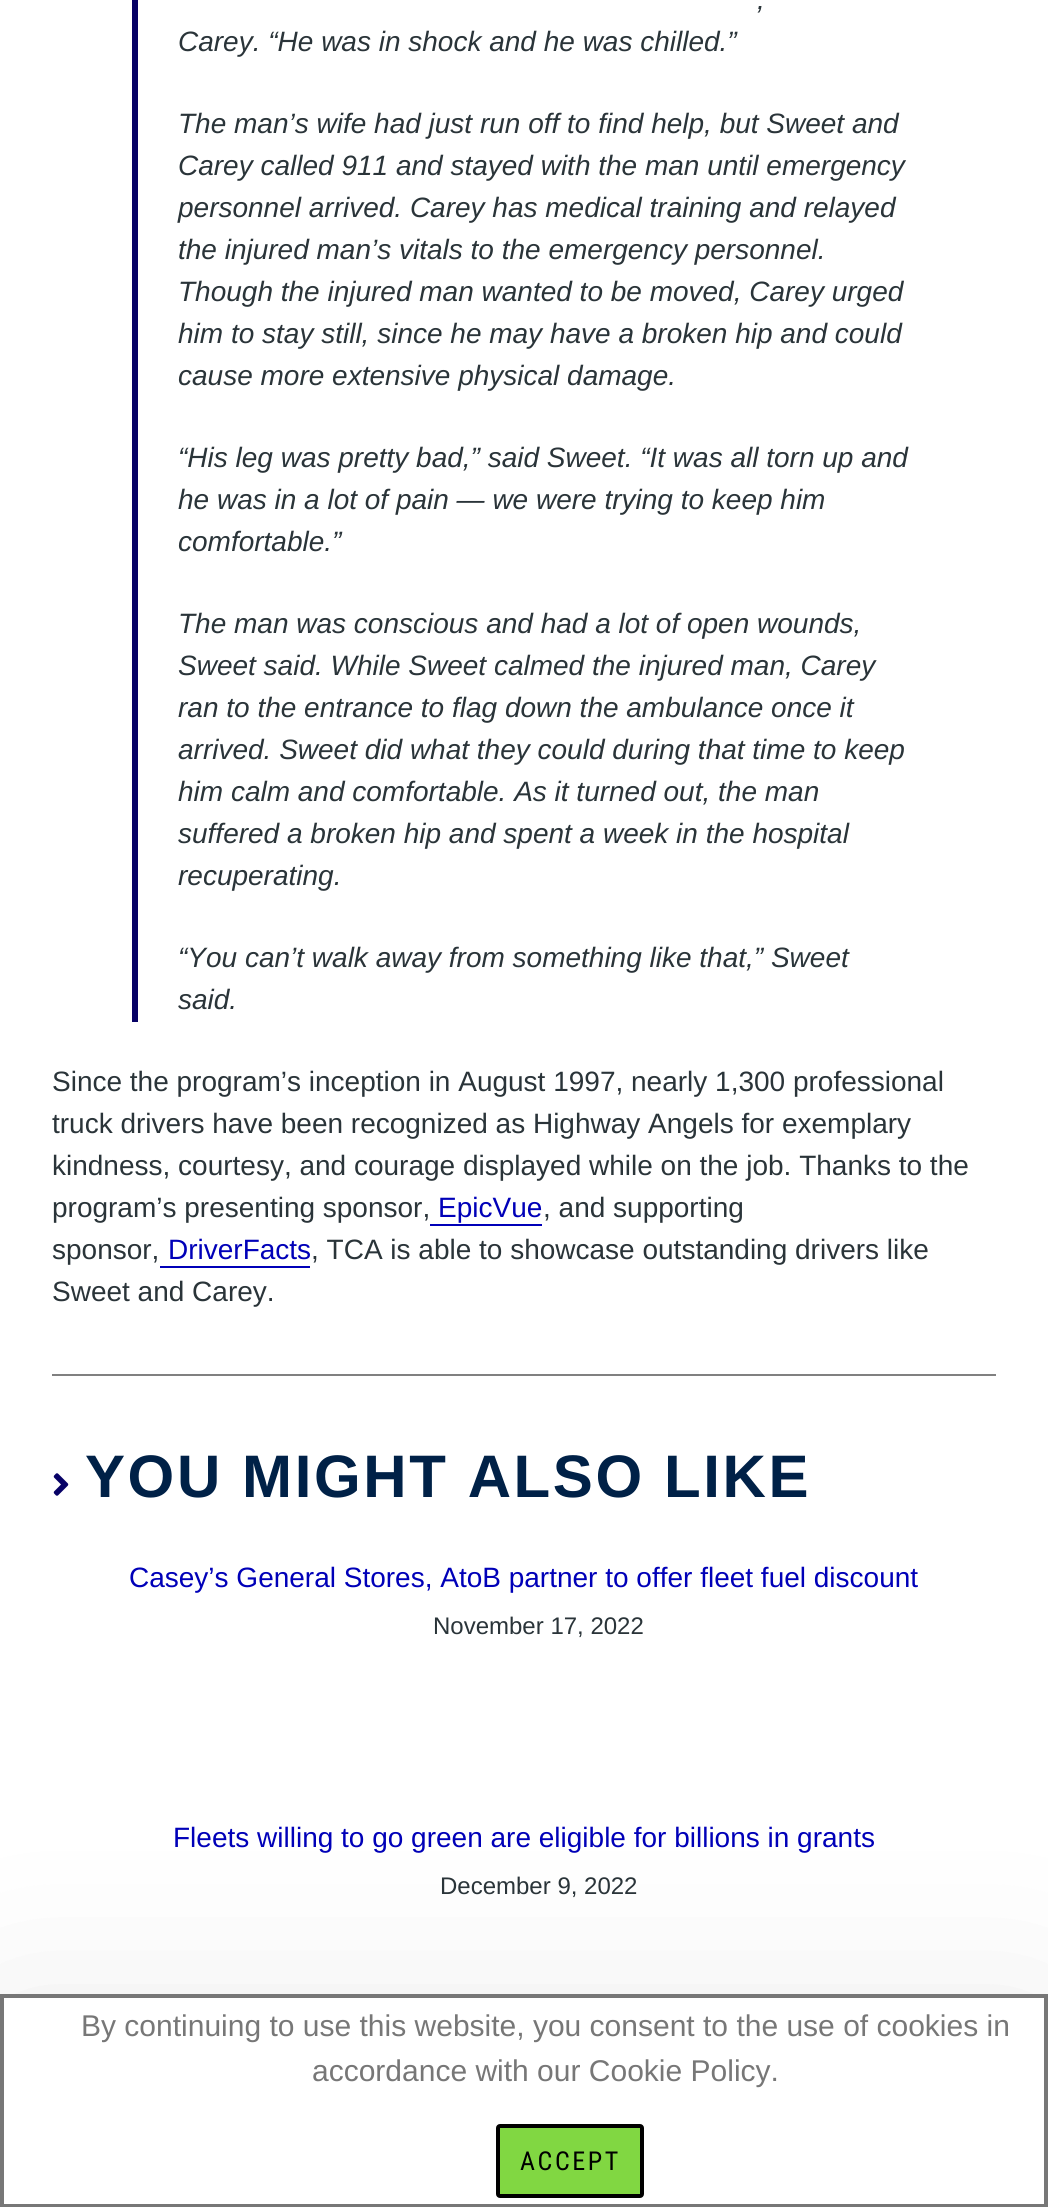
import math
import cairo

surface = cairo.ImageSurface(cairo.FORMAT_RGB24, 1048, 2207)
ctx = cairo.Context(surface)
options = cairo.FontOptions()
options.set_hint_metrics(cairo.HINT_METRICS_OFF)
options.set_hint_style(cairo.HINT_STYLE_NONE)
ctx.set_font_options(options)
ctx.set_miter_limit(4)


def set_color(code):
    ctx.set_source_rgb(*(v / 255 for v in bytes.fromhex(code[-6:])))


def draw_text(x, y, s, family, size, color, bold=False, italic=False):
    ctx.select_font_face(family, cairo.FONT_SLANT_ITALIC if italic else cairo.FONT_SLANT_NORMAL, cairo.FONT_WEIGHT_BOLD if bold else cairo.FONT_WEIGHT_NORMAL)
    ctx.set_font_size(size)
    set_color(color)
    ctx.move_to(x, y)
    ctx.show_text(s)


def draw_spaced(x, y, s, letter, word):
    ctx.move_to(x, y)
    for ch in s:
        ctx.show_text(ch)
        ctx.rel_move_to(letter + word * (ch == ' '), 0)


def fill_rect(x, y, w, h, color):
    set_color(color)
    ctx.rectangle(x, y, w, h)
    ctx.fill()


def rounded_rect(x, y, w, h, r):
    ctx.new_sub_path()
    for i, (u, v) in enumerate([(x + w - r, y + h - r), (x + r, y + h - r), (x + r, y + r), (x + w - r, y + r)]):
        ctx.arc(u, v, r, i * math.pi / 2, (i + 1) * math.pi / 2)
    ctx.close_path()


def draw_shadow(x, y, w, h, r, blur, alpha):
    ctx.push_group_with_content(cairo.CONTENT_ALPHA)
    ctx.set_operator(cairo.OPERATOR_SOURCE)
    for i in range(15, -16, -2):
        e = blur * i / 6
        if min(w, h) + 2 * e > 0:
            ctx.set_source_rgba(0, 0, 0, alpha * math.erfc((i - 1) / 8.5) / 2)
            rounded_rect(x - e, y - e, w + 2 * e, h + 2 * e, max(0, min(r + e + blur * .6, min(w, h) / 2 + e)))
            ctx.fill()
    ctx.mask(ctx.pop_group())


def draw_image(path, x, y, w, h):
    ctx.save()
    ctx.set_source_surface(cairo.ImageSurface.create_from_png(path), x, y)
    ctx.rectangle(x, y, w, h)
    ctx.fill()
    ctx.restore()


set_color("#ffffff")
ctx.paint()
fill_rect(132, 0, 6, 1022, "#070166")
draw_text(757, 9, ",", "Liberation Sans", 28, "#2a3439", italic=True)
draw_text(178, 51, "Carey. “He was in shock and he was chilled.”", "Liberation Sans", 28, "#2a3439", italic=True)
draw_text(178, 133, "The man’s wife had just run off to find help, but Sweet and", "Liberation Sans", 28, "#2a3439", italic=True)
draw_text(178, 175, "Carey called 911 and stayed with the man until emergency", "Liberation Sans", 28, "#2a3439", italic=True)
draw_text(178, 217, "personnel arrived. Carey has medical training and relayed", "Liberation Sans", 28, "#2a3439", italic=True)
draw_text(178, 259, "the injured man’s vitals to the emergency personnel.", "Liberation Sans", 28, "#2a3439", italic=True)
draw_text(178, 301, "Though the injured man wanted to be moved, Carey urged", "Liberation Sans", 28, "#2a3439", italic=True)
draw_text(178, 343, "him to stay still, since he may have a broken hip and could", "Liberation Sans", 28, "#2a3439", italic=True)
draw_text(178, 385, "cause more extensive physical damage.", "Liberation Sans", 28, "#2a3439", italic=True)
draw_text(178, 467, "“His leg was pretty bad,” said Sweet. “It was all torn up and", "Liberation Sans", 28, "#2a3439", italic=True)
draw_text(178, 509, "he was in a lot of pain — we were trying to keep him", "Liberation Sans", 28, "#2a3439", italic=True)
draw_text(178, 551, "comfortable.”", "Liberation Sans", 28, "#2a3439", italic=True)
draw_text(178, 633, "The man was conscious and had a lot of open wounds,", "Liberation Sans", 28, "#2a3439", italic=True)
draw_text(178, 675, "Sweet said. While Sweet calmed the injured man, Carey", "Liberation Sans", 28, "#2a3439", italic=True)
draw_text(178, 717, "ran to the entrance to flag down the ambulance once it", "Liberation Sans", 28, "#2a3439", italic=True)
draw_text(178, 759, "arrived. Sweet did what they could during that time to keep", "Liberation Sans", 28, "#2a3439", italic=True)
draw_text(178, 801, "him calm and comfortable. As it turned out, the man", "Liberation Sans", 28, "#2a3439", italic=True)
draw_text(178, 843, "suffered a broken hip and spent a week in the hospital", "Liberation Sans", 28, "#2a3439", italic=True)
draw_text(178, 885, "recuperating.", "Liberation Sans", 28, "#2a3439", italic=True)
draw_text(178, 967, "“You can’t walk away from something like that,” Sweet", "Liberation Sans", 28, "#2a3439", italic=True)
draw_text(178, 1009, "said.", "Liberation Sans", 28, "#2a3439", italic=True)
draw_text(52, 1091, "Since the program’s inception in August 1997, nearly 1,300 professional", "Liberation Sans", 28, "#2a3439")
draw_text(52, 1133, "truck drivers have been recognized as Highway Angels for exemplary", "Liberation Sans", 28, "#2a3439")
draw_text(52, 1175, "kindness, courtesy, and courage displayed while on the job. Thanks to the", "Liberation Sans", 28, "#2a3439")
draw_text(52, 1217, "program’s presenting sponsor,", "Liberation Sans", 28, "#2a3439")
draw_text(438, 1217, "EpicVue", "Liberation Sans", 28, "#0000b8")
fill_rect(430, 1224, 112, 2, "#0000b8")
draw_text(543, 1217, ", and supporting", "Liberation Sans", 28, "#2a3439")
draw_text(52, 1259, "sponsor,", "Liberation Sans", 28, "#2a3439")
draw_text(168, 1259, "DriverFacts", "Liberation Sans", 28, "#0000b8")
fill_rect(160, 1266, 150, 2, "#0000b8")
draw_text(311, 1259, ", TCA is able to showcase outstanding drivers like", "Liberation Sans", 28, "#2a3439")
draw_text(52, 1301, "Sweet and Carey.", "Liberation Sans", 28, "#2a3439")
fill_rect(52, 1374, 944, 2, "#808080")
draw_image("assets/img1.png", 53, 1473, 16, 23)
ctx.select_font_face("Liberation Sans", cairo.FONT_SLANT_NORMAL, cairo.FONT_WEIGHT_BOLD)
ctx.set_font_size(60)
set_color("#002147")
draw_spaced(85, 1497, "YOU MIGHT ALSO LIKE", 2.6, 0)
draw_text(129, 1587, "Casey’s General Stores, AtoB partner to offer fleet fuel discount", "Liberation Sans", 28, "#0000b8")
draw_text(433, 1634, "November 17, 2022", "Liberation Sans", 24, "#2a3439")
draw_text(173, 1847, "Fleets willing to go green are eligible for billions in grants", "Liberation Sans", 28, "#0000b8")
draw_text(440, 1894, "December 9, 2022", "Liberation Sans", 24, "#2a3439")
set_color("#000000")
draw_shadow(0, 2034, 1048, 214, 0, 100, 0.1)
set_color("#ffffff")
ctx.rectangle(2, 1996, 1044, 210)
ctx.fill_preserve()
set_color("#777777")
ctx.set_line_width(4)
ctx.stroke()
draw_text(81, 2036, "By continuing to use this website, you consent to the use of cookies in", "Liberation Sans", 30, "#777777")
draw_text(312, 2081, "accordance with our Cookie Policy.", "Liberation Sans", 30, "#777777")
set_color("#81d742")
rounded_rect(498, 2126, 144, 70, 2)
ctx.fill_preserve()
set_color("#000000")
ctx.stroke()
ctx.select_font_face("Roboto Condensed")
ctx.set_font_size(26)
draw_spaced(520, 2170, "ACCEPT", 2.6, 0)
surface.write_to_png("output.png")
